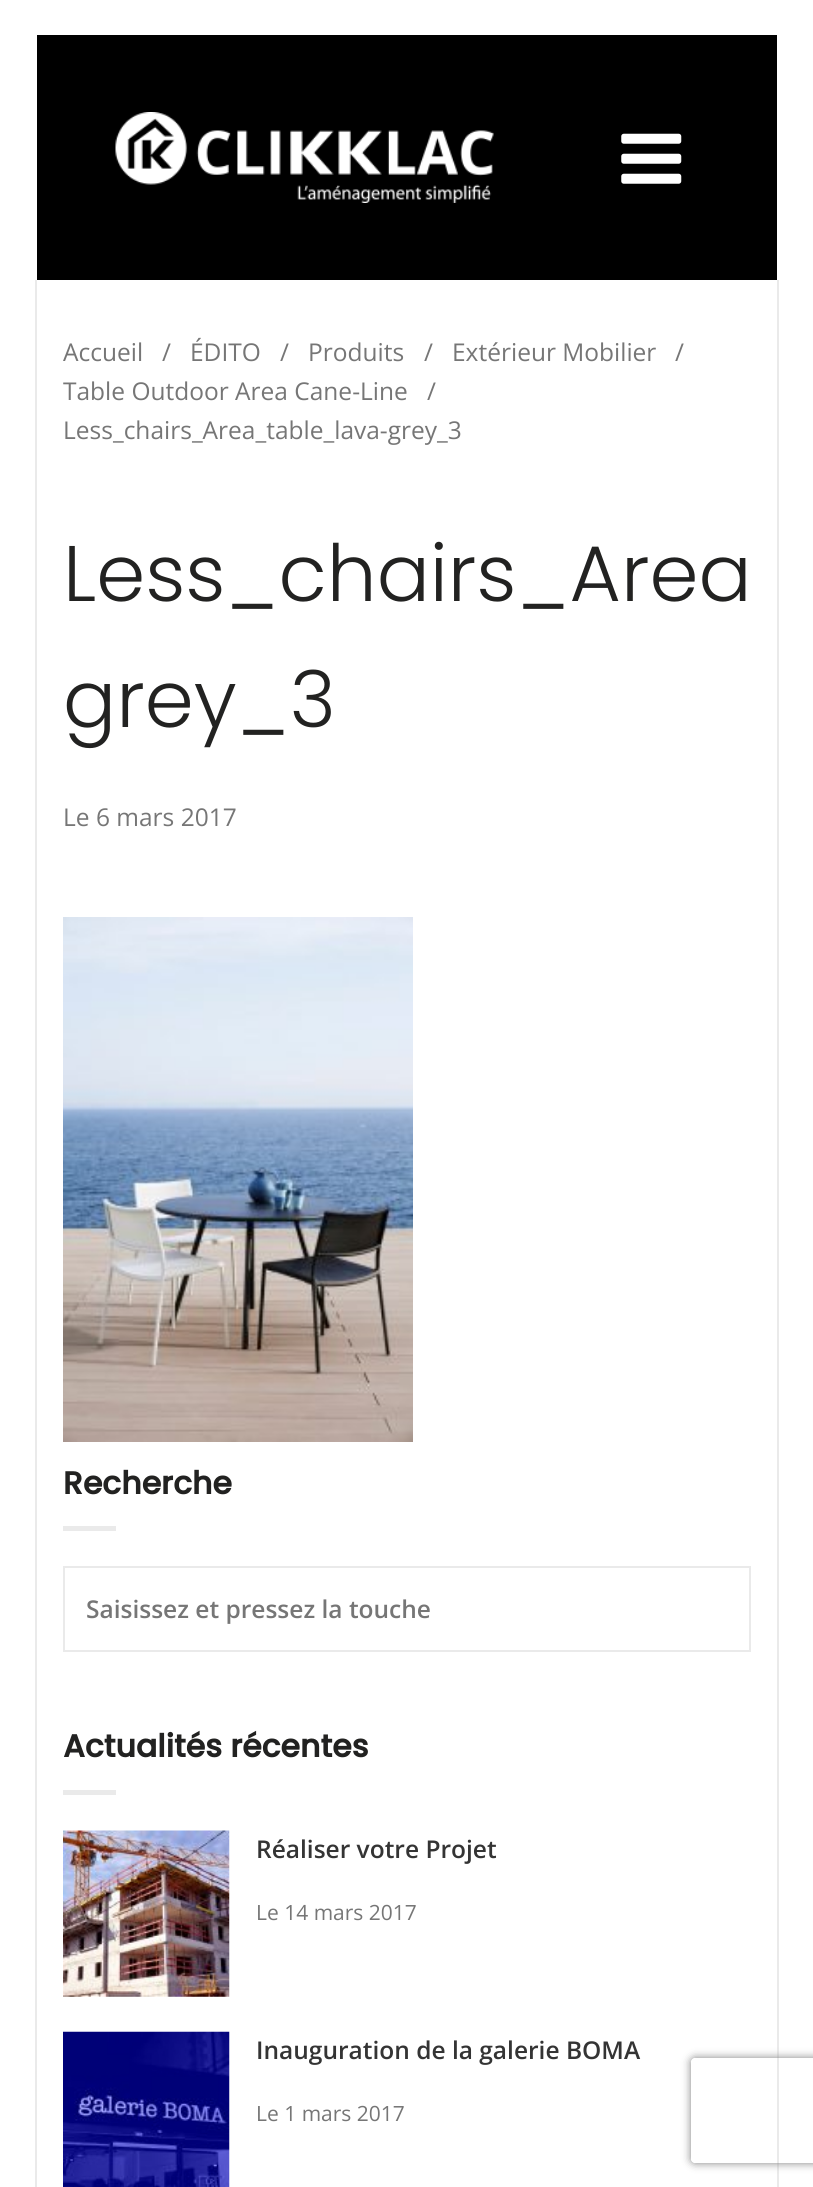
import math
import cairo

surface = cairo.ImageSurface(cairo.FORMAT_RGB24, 813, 2187)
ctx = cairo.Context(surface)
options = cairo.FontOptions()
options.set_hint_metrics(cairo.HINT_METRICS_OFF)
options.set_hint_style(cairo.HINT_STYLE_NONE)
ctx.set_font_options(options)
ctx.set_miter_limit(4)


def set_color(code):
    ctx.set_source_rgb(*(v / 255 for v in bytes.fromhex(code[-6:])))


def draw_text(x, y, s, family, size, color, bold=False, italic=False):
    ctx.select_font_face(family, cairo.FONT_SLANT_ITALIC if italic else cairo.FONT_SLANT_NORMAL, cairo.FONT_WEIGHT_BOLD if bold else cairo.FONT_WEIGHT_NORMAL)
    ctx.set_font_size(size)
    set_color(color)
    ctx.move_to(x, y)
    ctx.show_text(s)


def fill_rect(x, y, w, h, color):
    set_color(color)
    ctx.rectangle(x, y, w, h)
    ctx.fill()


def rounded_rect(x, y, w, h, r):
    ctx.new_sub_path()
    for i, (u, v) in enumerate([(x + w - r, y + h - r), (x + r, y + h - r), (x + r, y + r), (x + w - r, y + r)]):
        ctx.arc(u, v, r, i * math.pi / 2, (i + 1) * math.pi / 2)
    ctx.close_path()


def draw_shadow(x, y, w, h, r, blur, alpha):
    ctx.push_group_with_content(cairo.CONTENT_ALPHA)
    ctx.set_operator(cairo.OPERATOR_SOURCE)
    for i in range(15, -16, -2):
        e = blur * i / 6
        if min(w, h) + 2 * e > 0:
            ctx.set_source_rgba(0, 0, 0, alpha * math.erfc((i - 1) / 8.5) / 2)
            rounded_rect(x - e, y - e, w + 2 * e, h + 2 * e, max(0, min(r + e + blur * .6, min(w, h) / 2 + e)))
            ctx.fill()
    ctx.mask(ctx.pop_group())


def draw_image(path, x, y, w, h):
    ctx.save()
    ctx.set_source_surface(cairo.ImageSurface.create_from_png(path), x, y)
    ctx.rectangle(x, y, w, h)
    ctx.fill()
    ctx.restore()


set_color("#ffffff")
ctx.paint()
fill_rect(37, 35, 740, 245, "#000000")
draw_image("assets/img1.png", 115, 112, 379, 91)
draw_image("assets/img2.png", 621, 133, 61, 51)
fill_rect(777, 280, 2, 1907, "#eaeaea")
fill_rect(35, 280, 2, 1907, "#eaeaea")
draw_text(63, 361, "Accueil", "Open Sans", 24.5, "#767676")
draw_text(162, 361, "/", "Open Sans", 24.5, "#767676")
draw_text(190, 361, "ÉDITO", "Open Sans", 24.5, "#767676")
draw_text(280, 361, "/", "Open Sans", 24.5, "#767676")
draw_text(308, 361, "Produits", "Open Sans", 24.5, "#767676")
draw_text(424, 361, "/", "Open Sans", 24.5, "#767676")
draw_text(452, 361, "Extérieur Mobilier", "Open Sans", 24.5, "#767676")
draw_text(675, 361, "/", "Open Sans", 24.5, "#767676")
draw_text(63, 400, "Table Outdoor Area Cane-Line", "Open Sans", 24.5, "#767676")
draw_text(427, 400, "/", "Open Sans", 24.5, "#767676")
draw_text(63, 439, "Less_chairs_Area_table_lava-grey_3", "Open Sans", 24.5, "#767676")
draw_text(63, 601, "Less_chairs_Area", "Poppins Light", 78.75, "#222221")
draw_text(63, 727, "grey_3", "Poppins Light", 78.75, "#222221")
draw_text(63, 826, "Le 6 mars 2017", "Open Sans", 24.5, "#767676")
draw_image("assets/img3.png", 63, 917, 350, 525)
draw_text(63, 1494, "Recherche", "Poppins", 31.5, "#222221", bold=True)
fill_rect(63, 1526, 53, 5, "#eaeaea")
ctx.rectangle(64, 1567, 686, 84)
ctx.stroke()
draw_text(86, 1618, "Saisissez et pressez la touche", "Open Sans SemiBold", 24.5, "#767676")
draw_text(63, 1757, "Actualités récentes", "Poppins", 31.5, "#222221", bold=True)
fill_rect(63, 1790, 53, 5, "#eaeaea")
draw_image("assets/img4.png", 63, 1830, 167, 167)
draw_text(256, 1858, "Réaliser votre Projet", "Open Sans SemiBold", 24.5, "#343434")
draw_text(256, 1920, "Le 14 mars 2017", "Open Sans", 21, "#767676")
draw_image("assets/img5.png", 63, 2031, 167, 156)
draw_text(256, 2059, "Inauguration de la galerie BOMA", "Open Sans SemiBold", 24.5, "#343434")
draw_text(256, 2121, "Le 1 mars 2017", "Open Sans", 21, "#767676")
ctx.save()
ctx.set_fill_rule(cairo.FILL_RULE_EVEN_ODD)
ctx.new_path()
ctx.move_to(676, 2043)
ctx.line_to(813, 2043)
ctx.line_to(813, 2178)
ctx.line_to(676, 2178)
ctx.close_path()
ctx.move_to(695, 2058)
ctx.line_to(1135, 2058)
ctx.curve_to(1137, 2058, 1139, 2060, 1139, 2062)
ctx.line_to(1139, 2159)
ctx.curve_to(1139, 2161, 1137, 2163, 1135, 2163)
ctx.line_to(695, 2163)
ctx.curve_to(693, 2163, 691, 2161, 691, 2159)
ctx.line_to(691, 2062)
ctx.curve_to(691, 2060, 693, 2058, 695, 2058)
ctx.close_path()
ctx.clip()
set_color("#808080")
draw_shadow(691, 2058, 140, 105, 4, 4.5, 1)
ctx.restore()
surface.write_to_png("output.png")
